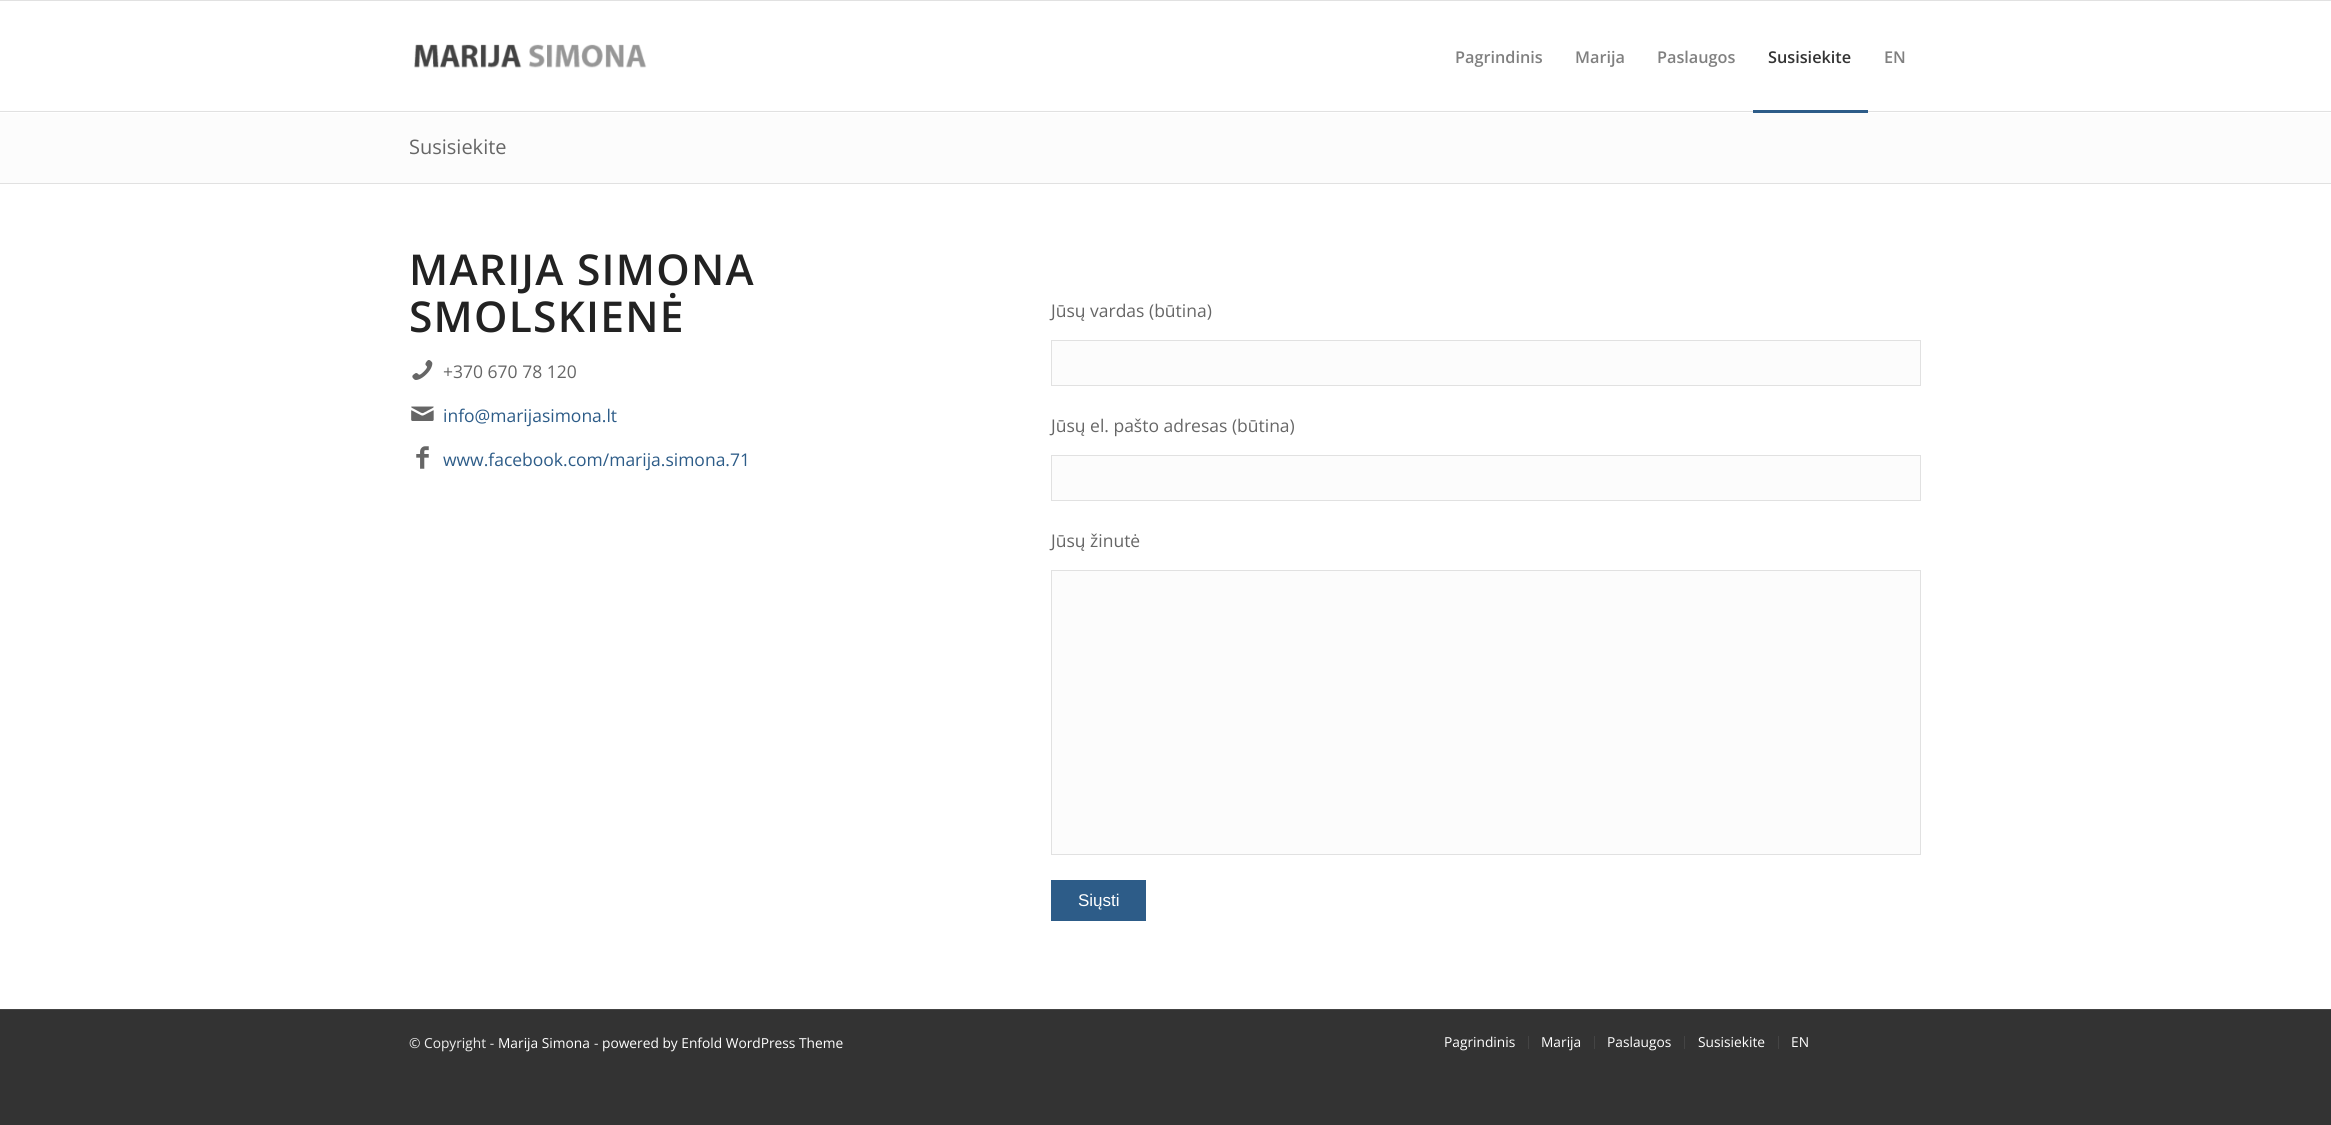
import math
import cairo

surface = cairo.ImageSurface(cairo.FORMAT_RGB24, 2331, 1125)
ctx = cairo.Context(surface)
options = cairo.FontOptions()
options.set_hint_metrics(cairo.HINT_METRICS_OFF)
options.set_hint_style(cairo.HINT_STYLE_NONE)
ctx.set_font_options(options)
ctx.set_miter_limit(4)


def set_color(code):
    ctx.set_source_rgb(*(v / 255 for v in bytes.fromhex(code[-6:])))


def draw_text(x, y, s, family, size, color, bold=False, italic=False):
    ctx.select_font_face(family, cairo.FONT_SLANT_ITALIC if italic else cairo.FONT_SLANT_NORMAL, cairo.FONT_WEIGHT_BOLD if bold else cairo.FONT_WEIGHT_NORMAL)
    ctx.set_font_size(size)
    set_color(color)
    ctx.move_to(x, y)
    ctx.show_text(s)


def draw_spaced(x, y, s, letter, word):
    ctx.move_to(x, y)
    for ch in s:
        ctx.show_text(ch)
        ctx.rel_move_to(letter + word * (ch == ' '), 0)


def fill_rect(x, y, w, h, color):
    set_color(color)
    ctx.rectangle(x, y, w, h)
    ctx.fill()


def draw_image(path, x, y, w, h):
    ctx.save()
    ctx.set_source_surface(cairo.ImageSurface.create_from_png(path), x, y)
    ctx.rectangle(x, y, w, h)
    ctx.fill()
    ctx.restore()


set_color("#333333")
ctx.paint()
fill_rect(0, 184, 2331, 825, "#ffffff")
fill_rect(0, 1, 2331, 109, "#ffffff")
fill_rect(0, 0, 2331, 1, "#e1e1e1")
fill_rect(0, 111, 2331, 1, "#e1e1e1")
draw_image("assets/img1.png", 414, 44, 233, 24)
draw_text(1455, 63, "Pagrindinis", "Open Sans SemiBold", 16.25, "#808080")
draw_text(1575, 63, "Marija", "Open Sans SemiBold", 16.25, "#808080")
draw_text(1657, 63, "Paslaugos", "Open Sans SemiBold", 16.25, "#808080")
draw_text(1768, 63, "Susisiekite", "Open Sans SemiBold", 16.25, "#333333")
fill_rect(0, 112, 2331, 1, "#ffffff")
fill_rect(0, 110, 2331, 1, "#fefefe")
fill_rect(1753, 110, 115, 3, "#2d5c88")
draw_text(1884, 63, "EN", "Open Sans SemiBold", 16.25, "#808080")
fill_rect(0, 113, 2331, 70, "#fcfcfc")
draw_text(409, 154, "Susisiekite", "Open Sans", 20, "#666666")
fill_rect(0, 183, 2331, 1, "#e1e1e1")
ctx.select_font_face("Open Sans SemiBold")
ctx.set_font_size(42.5)
set_color("#222222")
draw_spaced(409, 285, "MARIJA SIMONA", 1.25, 0)
draw_spaced(409, 332, "SMOLSKIENĖ", 1.25, 0)
draw_image("assets/img2.png", 412, 360, 21, 20)
draw_text(443, 378, "+370 670 78 120", "Open Sans", 17.5, "#666666")
draw_image("assets/img3.png", 411, 406, 23, 15)
draw_text(443, 422, "info@marijasimona.lt", "Open Sans", 17.5, "#2d5c88")
draw_image("assets/img4.png", 416, 446, 13, 23)
draw_text(443, 466, "www.facebook.com/marija.simona.71", "Open Sans", 17.5, "#2d5c88")
draw_text(1051, 317, "Jūsų vardas (būtina)", "Open Sans", 17.5, "#666666")
set_color("#fcfcfc")
ctx.rectangle(1051.5, 340.5, 869, 45)
ctx.fill_preserve()
set_color("#e1e1e1")
ctx.set_line_width(1)
ctx.stroke()
draw_text(1051, 432, "Jūsų el. pašto adresas (būtina)", "Open Sans", 17.5, "#666666")
set_color("#fcfcfc")
ctx.rectangle(1051.5, 455.5, 869, 45)
ctx.fill_preserve()
set_color("#e1e1e1")
ctx.stroke()
draw_text(1051, 547, "Jūsų žinutė", "Open Sans", 17.5, "#666666")
set_color("#fcfcfc")
ctx.rectangle(1051.5, 570.5, 869, 284)
ctx.fill_preserve()
set_color("#e1e1e1")
ctx.stroke()
fill_rect(1051, 880, 95, 41, "#2d5c88")
draw_text(1078, 906, "Siųsti", "Liberation Sans", 17, "#ffffff")
fill_rect(0, 1009, 2331, 1, "#444444")
draw_text(409, 1048, "© Copyright -", "Open Sans", 13.75, "#eeeeee")
draw_text(498, 1048, "Marija Simona", "Open Sans", 13.75, "#ffffff")
draw_text(594, 1048, "-", "Open Sans", 13.75, "#eeeeee")
draw_text(602, 1048, "powered by Enfold WordPress Theme", "Open Sans", 13.75, "#ffffff")
draw_text(1444, 1047, "Pagrindinis", "Open Sans", 13.75, "#ffffff")
fill_rect(1528, 1036, 1, 13, "#444444")
draw_text(1541, 1047, "Marija", "Open Sans", 13.75, "#ffffff")
fill_rect(1594, 1036, 1, 13, "#444444")
draw_text(1607, 1047, "Paslaugos", "Open Sans", 13.75, "#ffffff")
fill_rect(1684, 1036, 1, 13, "#444444")
draw_text(1698, 1047, "Susisiekite", "Open Sans", 13.75, "#ffffff")
fill_rect(1778, 1036, 1, 13, "#444444")
draw_text(1791, 1047, "EN", "Open Sans", 13.75, "#ffffff")
surface.write_to_png("output.png")
